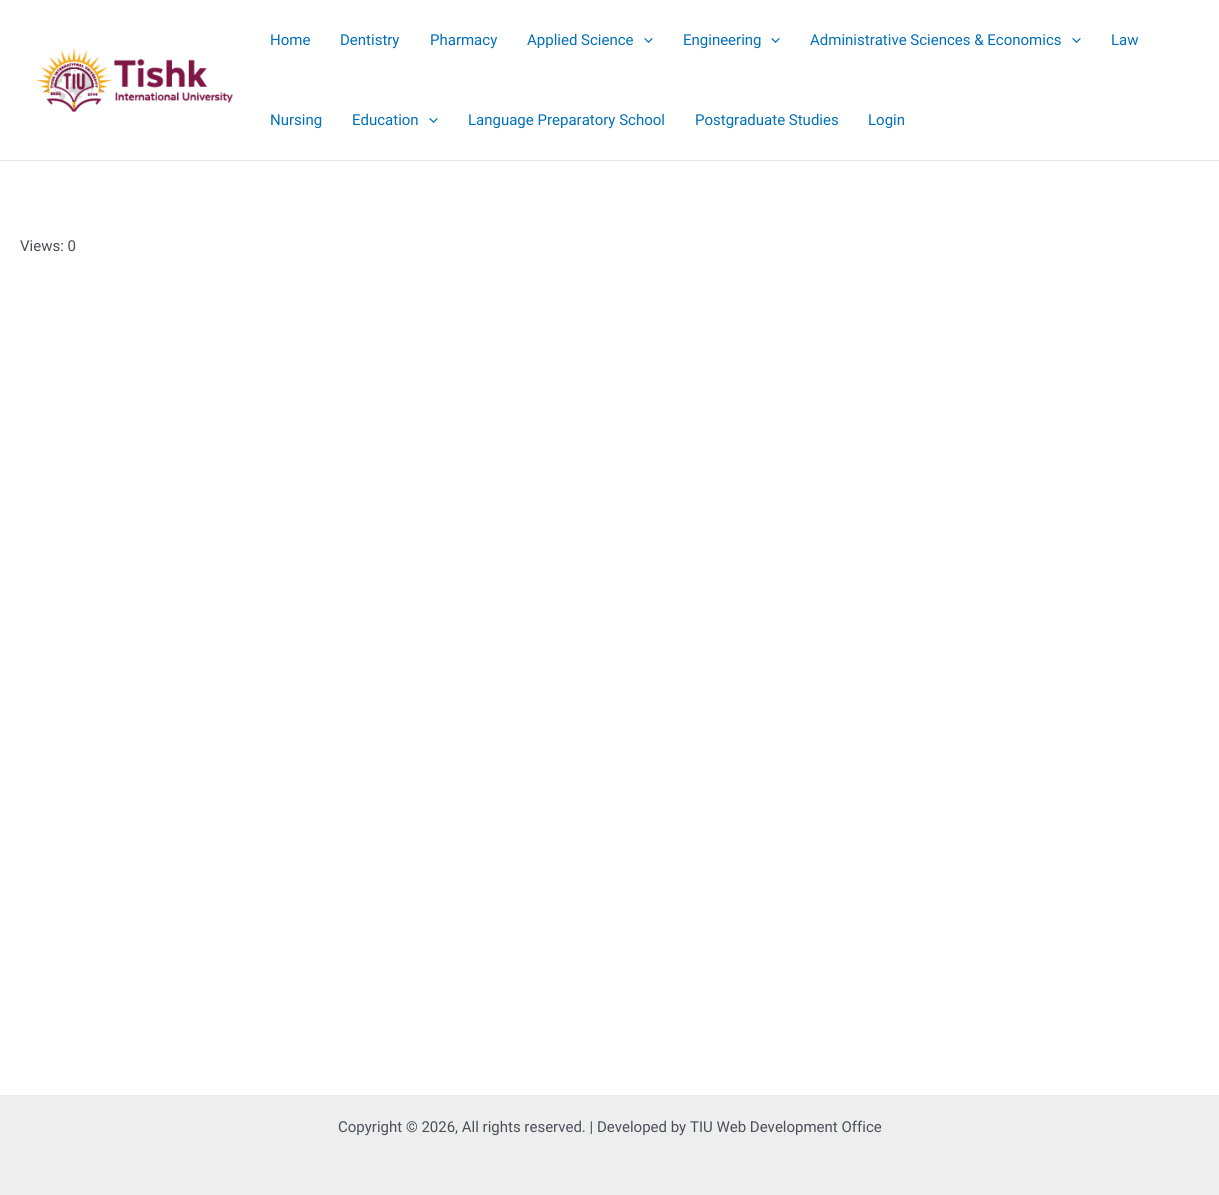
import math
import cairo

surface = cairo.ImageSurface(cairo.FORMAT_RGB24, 1219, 1195)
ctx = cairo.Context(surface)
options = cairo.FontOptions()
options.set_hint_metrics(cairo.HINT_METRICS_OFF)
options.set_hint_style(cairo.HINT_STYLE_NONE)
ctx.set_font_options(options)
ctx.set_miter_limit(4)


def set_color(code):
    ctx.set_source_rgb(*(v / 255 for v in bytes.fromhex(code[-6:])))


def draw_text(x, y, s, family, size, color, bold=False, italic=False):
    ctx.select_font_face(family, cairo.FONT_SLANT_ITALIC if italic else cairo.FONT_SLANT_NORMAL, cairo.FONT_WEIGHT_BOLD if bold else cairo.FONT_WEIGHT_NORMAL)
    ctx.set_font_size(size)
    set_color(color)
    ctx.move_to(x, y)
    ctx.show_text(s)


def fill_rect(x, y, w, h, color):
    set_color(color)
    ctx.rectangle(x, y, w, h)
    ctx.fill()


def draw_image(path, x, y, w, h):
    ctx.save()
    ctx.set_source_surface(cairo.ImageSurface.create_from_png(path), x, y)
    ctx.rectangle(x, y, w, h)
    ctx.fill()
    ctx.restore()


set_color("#ffffff")
ctx.paint()
fill_rect(0, 160, 1219, 1, "#e5e5e5")
draw_image("assets/img1.png", 36, 48, 198, 64)
draw_text(270, 45, "Home", "Roboto", 15, "#0170b9")
draw_text(340, 45, "Dentistry", "Roboto", 15, "#0170b9")
draw_text(430, 45, "Pharmacy", "Roboto", 15, "#0170b9")
draw_text(527, 45, "Applied Science", "Roboto", 15, "#0170b9")
draw_image("assets/img2.png", 644, 38, 9, 5)
draw_text(683, 45, "Engineering", "Roboto", 15, "#0170b9")
draw_image("assets/img2.png", 771, 38, 9, 5)
draw_text(810, 45, "Administrative Sciences & Economics", "Roboto", 15, "#0170b9")
draw_image("assets/img2.png", 1072, 38, 9, 5)
draw_text(1111, 45, "Law", "Roboto", 15, "#0170b9")
draw_text(270, 125, "Nursing", "Roboto", 15, "#0170b9")
draw_text(352, 125, "Education", "Roboto", 15, "#0170b9")
draw_image("assets/img2.png", 429, 118, 9, 5)
draw_text(468, 125, "Language Preparatory School", "Roboto", 15, "#0170b9")
draw_text(695, 125, "Postgraduate Studies", "Roboto", 15, "#0170b9")
draw_text(868, 125, "Login", "Roboto", 15, "#0170b9")
draw_text(20, 251, "Views: 0", "Roboto", 15, "#4b4f58")
fill_rect(0, 1095, 1219, 100, "#eeeeee")
draw_text(338, 1132, "Copyright © 2026, All rights reserved. | Developed by TIU Web Development Office", "Roboto", 15, "#4b4f58")
surface.write_to_png("output.png")
